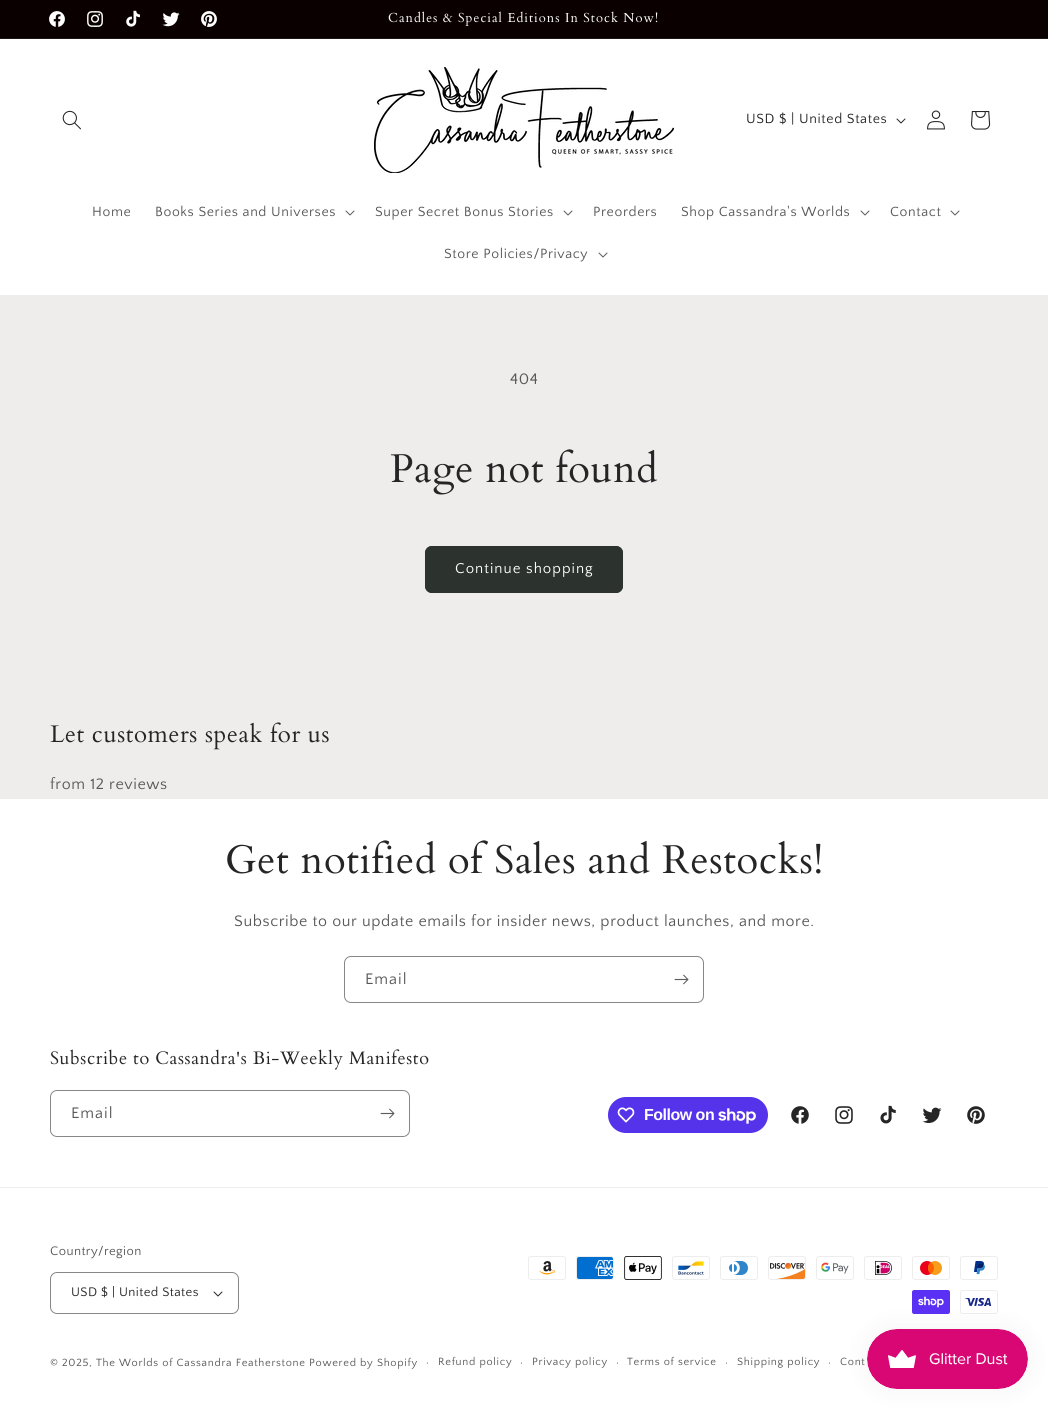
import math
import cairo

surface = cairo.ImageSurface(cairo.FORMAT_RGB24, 1048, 1409)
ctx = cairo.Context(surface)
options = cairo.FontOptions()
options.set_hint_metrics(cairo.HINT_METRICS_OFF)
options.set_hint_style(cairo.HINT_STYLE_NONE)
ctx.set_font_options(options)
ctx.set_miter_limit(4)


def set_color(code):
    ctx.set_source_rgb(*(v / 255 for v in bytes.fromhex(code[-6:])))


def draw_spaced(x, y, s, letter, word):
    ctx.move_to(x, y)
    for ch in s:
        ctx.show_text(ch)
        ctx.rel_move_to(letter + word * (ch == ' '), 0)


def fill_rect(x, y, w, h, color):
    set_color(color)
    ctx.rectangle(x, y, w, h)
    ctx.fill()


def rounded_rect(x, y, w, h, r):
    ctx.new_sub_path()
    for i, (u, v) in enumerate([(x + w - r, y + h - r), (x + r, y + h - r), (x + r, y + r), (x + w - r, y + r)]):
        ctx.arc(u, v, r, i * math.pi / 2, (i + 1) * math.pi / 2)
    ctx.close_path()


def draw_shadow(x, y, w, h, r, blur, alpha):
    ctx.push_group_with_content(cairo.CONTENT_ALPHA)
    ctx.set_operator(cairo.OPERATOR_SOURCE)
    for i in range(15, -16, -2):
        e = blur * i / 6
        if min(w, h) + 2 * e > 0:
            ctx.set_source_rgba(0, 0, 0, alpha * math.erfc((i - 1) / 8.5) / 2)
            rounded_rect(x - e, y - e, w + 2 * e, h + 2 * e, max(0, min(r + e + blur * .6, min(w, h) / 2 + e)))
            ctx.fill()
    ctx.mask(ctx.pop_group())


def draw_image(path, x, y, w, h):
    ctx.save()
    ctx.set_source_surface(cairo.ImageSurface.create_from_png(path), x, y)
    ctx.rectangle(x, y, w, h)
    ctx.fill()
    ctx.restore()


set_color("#efecec")
ctx.paint()
fill_rect(0, 0, 1048, 38, "#0a0000")
fill_rect(0, 38, 1048, 1, "#1e1414")
draw_image("assets/img1.png", 49, 11, 16, 16)
draw_image("assets/img2.png", 87, 11, 16, 16)
draw_image("assets/img3.png", 126, 10, 14, 17)
draw_image("assets/img4.png", 162, 12, 18, 15)
draw_image("assets/img5.png", 201, 11, 16, 16)
ctx.select_font_face("Cardo")
ctx.set_font_size(13)
set_color("#ffffff")
draw_spaced(388, 22, "Candles & Special Editions In Stock Now!", 1, 0)
fill_rect(0, 39, 1048, 256, "#ffffff")
draw_image("assets/img6.png", 62, 110, 19, 20)
draw_image("assets/img7.png", 374, 67, 300, 106)
ctx.select_font_face("Quattrocento Sans")
ctx.set_font_size(14)
set_color("#252525")
draw_spaced(746, 123, "USD $ | United States", 0.6, 0)
draw_image("assets/img8.png", 896, 118, 10, 6)
draw_image("assets/img9.png", 927, 110, 18, 20)
draw_image("assets/img10.png", 971, 111, 20, 19)
set_color("#585757")
draw_spaced(92, 216, "Home", 0.6, 0)
draw_spaced(155, 216, "Books Series and Universes", 0.6, 0)
draw_image("assets/img11.png", 345, 210, 10, 6)
draw_spaced(375, 216, "Super Secret Bonus Stories", 0.6, 0)
draw_image("assets/img11.png", 563, 210, 10, 6)
draw_spaced(593, 216, "Preorders", 0.6, 0)
draw_spaced(681, 216, "Shop Cassandra's Worlds", 0.6, 0)
draw_image("assets/img11.png", 860, 210, 10, 6)
draw_spaced(890, 216, "Contact", 0.6, 0)
draw_image("assets/img11.png", 950, 210, 10, 6)
draw_spaced(444, 258, "Store Policies/Privacy", 0.6, 0)
draw_image("assets/img11.png", 598, 252, 10, 6)
ctx.set_font_size(16)
draw_spaced(510, 384, "404", 0.6, 0)
ctx.select_font_face("Cardo")
ctx.set_font_size(40)
set_color("#252525")
draw_spaced(390, 482, "Page not found", 0.6, 0)
set_color("#2c332f")
rounded_rect(425, 546, 198, 47, 7)
ctx.fill()
rounded_rect(425.5, 546.5, 197, 46, 6.5)
ctx.set_line_width(1)
ctx.stroke()
ctx.select_font_face("Quattrocento Sans")
ctx.set_font_size(15)
set_color("#ffffff")
draw_spaced(455, 573, "Continue shopping", 1, 0)
ctx.select_font_face("Cardo")
ctx.set_font_size(24)
set_color("#252525")
draw_spaced(50, 742, "Let customers speak for us", 0.6, 0)
ctx.select_font_face("Quattrocento Sans")
ctx.set_font_size(16)
set_color("#585757")
draw_spaced(50, 789, "from 12 reviews", 0.6, 0)
fill_rect(0, 799, 1048, 610, "#ffffff")
ctx.select_font_face("Cardo")
ctx.set_font_size(40)
set_color("#252525")
draw_spaced(225, 873, "Get notified of Sales and Restocks!", 0.6, 0)
ctx.select_font_face("Quattrocento Sans")
ctx.set_font_size(16)
set_color("#585757")
draw_spaced(234, 926, "Subscribe to our update emails for insider news, product launches, and more.", 0.6, 0)
rounded_rect(344.5, 956.5, 359, 46, 6.5)
set_color("#878787")
ctx.stroke()
set_color("#585757")
draw_spaced(365, 984, "Email", 1, 0)
draw_image("assets/img12.png", 674, 974, 15, 11)
ctx.select_font_face("Cardo")
ctx.set_font_size(18)
set_color("#252525")
draw_spaced(50, 1064, "Subscribe to Cassandra's Bi-Weekly Manifesto", 0.6, 0)
rounded_rect(50.5, 1090.5, 359, 46, 6.5)
set_color("#878787")
ctx.stroke()
ctx.select_font_face("Quattrocento Sans")
ctx.set_font_size(16)
set_color("#585757")
draw_spaced(71, 1118, "Email", 1, 0)
draw_image("assets/img12.png", 380, 1108, 15, 11)
set_color("#5433eb")
rounded_rect(608, 1097, 160, 36, 18)
ctx.fill()
draw_image("assets/img13.png", 617, 1107, 18, 16)
ctx.select_font_face("Liberation Sans", cairo.FONT_SLANT_NORMAL, cairo.FONT_WEIGHT_BOLD)
set_color("#ffffff")
draw_spaced(644, 1120, "Follow on", -0.5, 0)
draw_image("assets/img14.png", 718, 1108, 38, 16)
draw_image("assets/img15.png", 791, 1106, 18, 18)
draw_image("assets/img16.png", 835, 1106, 18, 18)
draw_image("assets/img17.png", 880, 1105, 16, 19)
draw_image("assets/img18.png", 922, 1107, 20, 16)
draw_image("assets/img19.png", 967, 1106, 18, 18)
fill_rect(0, 1187, 1048, 1, "#eeeeee")
ctx.select_font_face("Quattrocento Sans")
ctx.set_font_size(13)
set_color("#585757")
draw_spaced(50, 1255, "Country/region", 0.4, 0)
draw_image("assets/img8.png", 213, 1291, 10, 6)
rounded_rect(50.5, 1272.5, 188, 41, 6.5)
set_color("#878787")
ctx.stroke()
set_color("#252525")
draw_spaced(71, 1296, "USD $ | United States", 0.4, 0)
draw_image("assets/img20.png", 528, 1256, 38, 24)
draw_image("assets/img21.png", 576, 1256, 38, 24)
draw_image("assets/img22.png", 624, 1256, 38, 24)
draw_image("assets/img23.png", 672, 1256, 38, 24)
draw_image("assets/img24.png", 720, 1256, 38, 24)
draw_image("assets/img25.png", 768, 1256, 38, 24)
draw_image("assets/img26.png", 816, 1256, 38, 24)
draw_image("assets/img27.png", 864, 1256, 38, 24)
draw_image("assets/img28.png", 912, 1256, 38, 24)
draw_image("assets/img29.png", 960, 1256, 38, 24)
draw_image("assets/img30.png", 912, 1290, 38, 24)
draw_image("assets/img31.png", 960, 1290, 38, 24)
ctx.set_font_size(11)
set_color("#585757")
draw_spaced(50, 1366, "© 2025, The Worlds of Cassandra Featherstone Powered by Shopify", 0.7, 0)
ctx.set_font_size(12)
draw_spaced(426, 1366, "·", 0.7, 0)
ctx.set_font_size(11)
draw_spaced(438, 1365, "Refund policy", 0.7, 0)
ctx.set_font_size(12)
draw_spaced(520, 1366, "·", 0.7, 0)
ctx.set_font_size(11)
draw_spaced(532, 1365, "Privacy policy", 0.7, 0)
ctx.set_font_size(12)
draw_spaced(616, 1366, "·", 0.7, 0)
ctx.set_font_size(11)
draw_spaced(627, 1365, "Terms of service", 0.7, 0)
ctx.set_font_size(12)
draw_spaced(725, 1366, "·", 0.7, 0)
ctx.set_font_size(11)
draw_spaced(737, 1365, "Shipping policy", 0.7, 0)
ctx.set_font_size(12)
draw_spaced(828, 1366, "·", 0.7, 0)
ctx.set_font_size(11)
draw_spaced(840, 1365, "Cont", 0.7, 0)
set_color("#000000")
draw_shadow(867, 1329, 161, 60, 30, 12.5, 0.05)
draw_image("assets/img32.png", 867, 1329, 161, 60)
surface.write_to_png("output.png")
